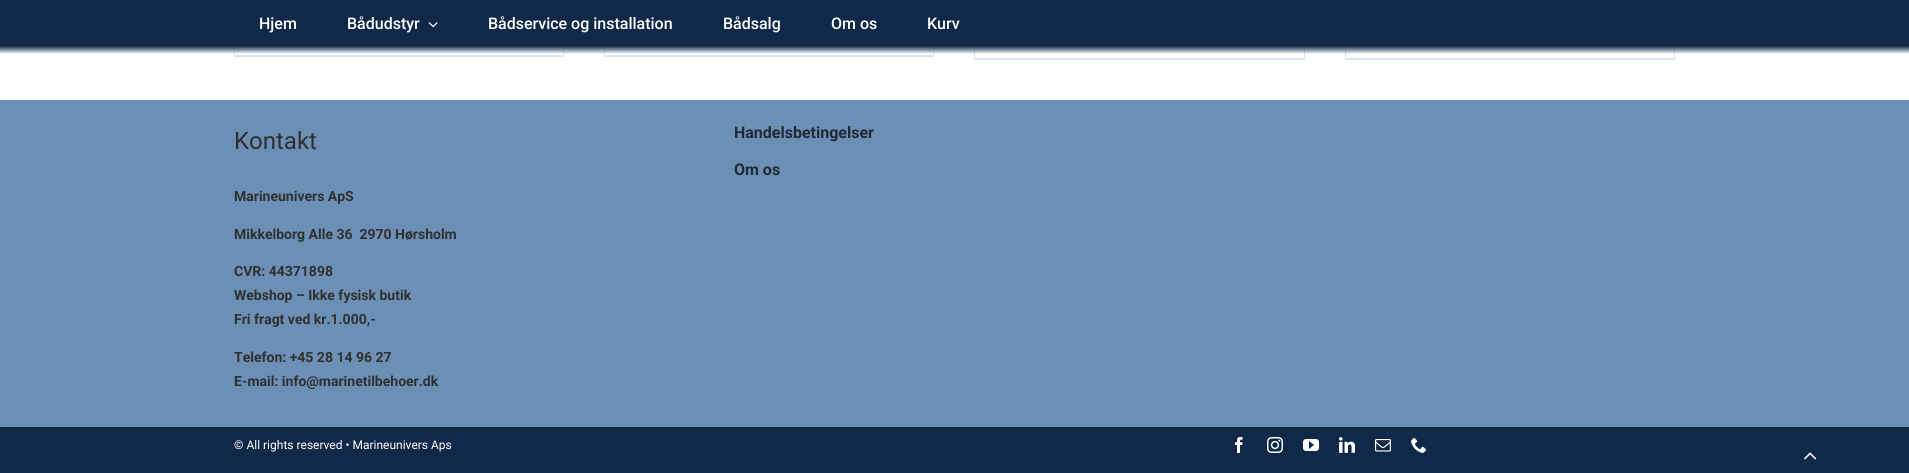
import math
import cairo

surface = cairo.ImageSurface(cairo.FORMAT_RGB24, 1909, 473)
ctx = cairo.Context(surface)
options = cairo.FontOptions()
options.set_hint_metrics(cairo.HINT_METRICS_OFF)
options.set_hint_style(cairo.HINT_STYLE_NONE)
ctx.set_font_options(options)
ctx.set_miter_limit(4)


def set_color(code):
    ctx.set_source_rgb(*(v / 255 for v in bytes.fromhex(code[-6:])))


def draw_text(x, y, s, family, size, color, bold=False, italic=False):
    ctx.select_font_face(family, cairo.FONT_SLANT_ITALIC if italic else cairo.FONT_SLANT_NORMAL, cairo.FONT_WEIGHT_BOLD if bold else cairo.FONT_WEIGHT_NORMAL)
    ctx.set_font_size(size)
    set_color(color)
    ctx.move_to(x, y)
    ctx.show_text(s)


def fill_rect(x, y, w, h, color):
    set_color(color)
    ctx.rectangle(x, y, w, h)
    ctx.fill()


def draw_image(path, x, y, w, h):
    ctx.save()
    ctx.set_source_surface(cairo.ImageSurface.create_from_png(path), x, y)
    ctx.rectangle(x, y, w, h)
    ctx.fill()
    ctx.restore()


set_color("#ffffff")
ctx.paint()
fill_rect(563, 46, 1, 11, "#d7e7f2")
fill_rect(234, 55, 330, 2, "#d7e7f2")
fill_rect(234, 46, 1, 11, "#d7e7f2")
fill_rect(933, 46, 1, 11, "#d7e7f2")
fill_rect(604, 55, 330, 2, "#d7e7f2")
fill_rect(604, 46, 1, 11, "#d7e7f2")
fill_rect(1304, 46, 1, 14, "#d7e7f2")
fill_rect(974, 58, 331, 2, "#d7e7f2")
fill_rect(974, 46, 1, 14, "#d7e7f2")
fill_rect(1674, 46, 1, 14, "#d7e7f2")
fill_rect(1345, 58, 330, 2, "#d7e7f2")
fill_rect(1345, 46, 1, 14, "#d7e7f2")
gradient = cairo.LinearGradient(955, 0, 955, 54)
gradient.add_color_stop_rgba(0.85, 0.067, 0.161, 0.286, 1)
gradient.add_color_stop_rgba(1, 0.067, 0.161, 0.286, 0)
ctx.set_source(gradient)
ctx.rectangle(0, 0, 1909, 54)
ctx.fill()
draw_text(259, 29, "Hjem", "Roboto Medium", 16, "#ffffff")
draw_text(347, 29, "Bådudstyr", "Roboto Medium", 16, "#ffffff")
draw_image("assets/img1.png", 428, 22, 10, 6)
draw_text(488, 29, "Bådservice og installation", "Roboto Medium", 16, "#ffffff")
draw_text(723, 29, "Bådsalg", "Roboto Medium", 16, "#ffffff")
draw_text(831, 29, "Om os", "Roboto Medium", 16, "#ffffff")
draw_text(927, 29, "Kurv", "Roboto Medium", 16, "#ffffff")
fill_rect(0, 100, 1909, 327, "#6b8fb5")
draw_text(234, 149, "Kontakt", "Roboto", 24, "#303030")
draw_text(234, 201, "Marineunivers ApS", "Roboto", 14, "#303030", bold=True)
draw_text(234, 239, "Mikkelborg Alle 36  2970 Hørsholm", "Roboto", 14, "#303030", bold=True)
draw_text(234, 276, "CVR: 44371898", "Roboto", 14, "#303030", bold=True)
draw_text(234, 300, "Webshop – Ikke fysisk butik", "Roboto", 14, "#303030", bold=True)
draw_text(234, 324, "Fri fragt ved kr.1.000,-", "Roboto", 14, "#303030", bold=True)
draw_text(234, 362, "Telefon: +45 28 14 96 27", "Roboto", 14, "#303030", bold=True)
draw_text(234, 386, "E-mail: info@marinetilbehoer.dk", "Roboto", 14, "#303030", bold=True)
draw_text(734, 138, "Handelsbetingelser", "Roboto", 16, "#212934", bold=True)
draw_text(734, 175, "Om os", "Roboto", 16, "#212934", bold=True)
fill_rect(0, 427, 1909, 46, "#112949")
draw_text(234, 449, "© All rights reserved • Marineunivers Aps", "Roboto", 12, "#ffffff")
draw_image("assets/img2.png", 1235, 437, 8, 16)
draw_image("assets/img3.png", 1267, 437, 16, 16)
draw_image("assets/img4.png", 1303, 439, 16, 12)
draw_image("assets/img5.png", 1339, 437, 16, 16)
draw_image("assets/img6.png", 1375, 439, 16, 13)
draw_image("assets/img7.png", 1411, 438, 15, 15)
draw_image("assets/img8.png", 1804, 452, 13, 8)
surface.write_to_png("output.png")
